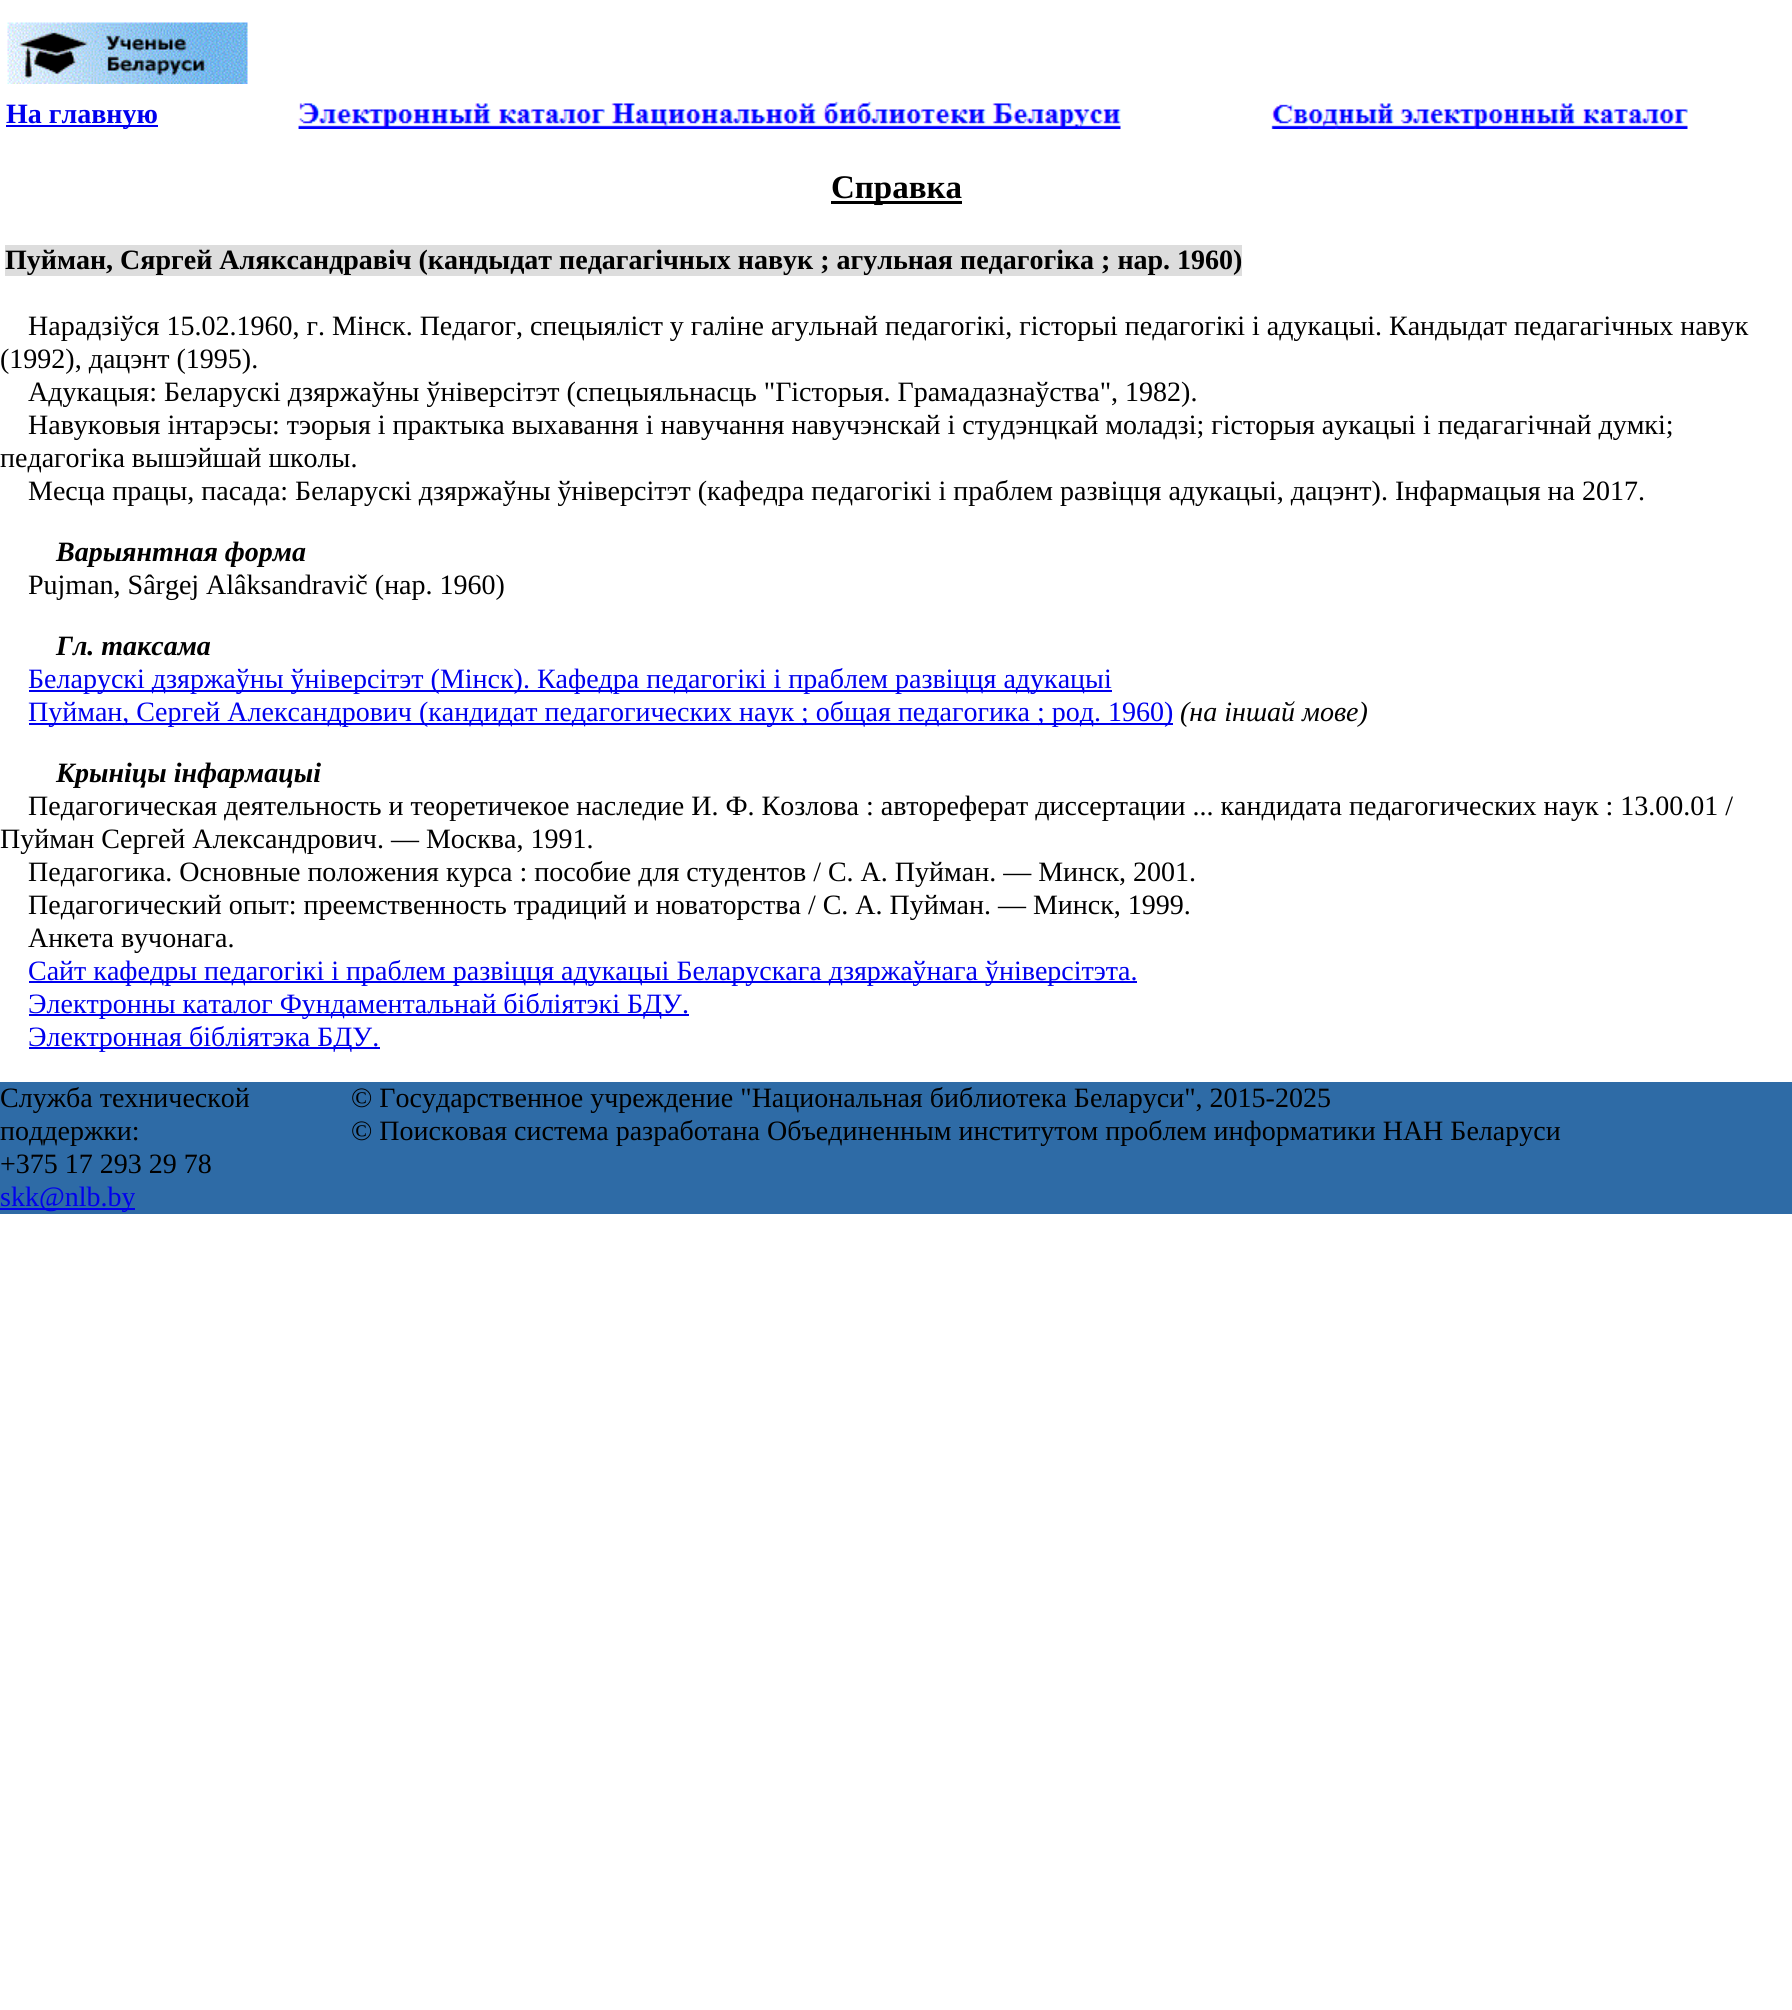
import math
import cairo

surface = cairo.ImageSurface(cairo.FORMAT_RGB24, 1792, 2010)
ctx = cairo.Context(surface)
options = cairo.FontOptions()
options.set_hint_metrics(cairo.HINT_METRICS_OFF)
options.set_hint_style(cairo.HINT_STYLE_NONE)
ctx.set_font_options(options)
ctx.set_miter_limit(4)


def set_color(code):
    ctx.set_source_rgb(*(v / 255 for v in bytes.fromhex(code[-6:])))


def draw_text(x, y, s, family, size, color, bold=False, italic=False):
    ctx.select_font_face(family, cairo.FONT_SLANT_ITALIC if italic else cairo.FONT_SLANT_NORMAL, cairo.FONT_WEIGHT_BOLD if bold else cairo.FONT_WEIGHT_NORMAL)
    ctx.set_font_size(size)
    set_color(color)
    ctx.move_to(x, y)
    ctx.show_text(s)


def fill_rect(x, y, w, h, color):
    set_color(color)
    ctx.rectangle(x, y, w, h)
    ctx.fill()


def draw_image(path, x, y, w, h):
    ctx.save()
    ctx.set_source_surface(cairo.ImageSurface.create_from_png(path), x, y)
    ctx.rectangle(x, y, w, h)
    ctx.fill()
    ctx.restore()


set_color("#ffffff")
ctx.paint()
draw_image("assets/img1.png", 7, 22, 241, 62)
fill_rect(6, 125, 152, 2, "#0000ee")
draw_text(6, 123, "На главную", "Liberation Serif", 28, "#0000ee", bold=True)
draw_image("assets/img2.png", 298, 101, 823, 28)
draw_image("assets/img3.png", 1271, 103, 417, 26)
fill_rect(831, 201, 131, 3, "#000000")
draw_text(831, 198, "Справка", "Liberation Serif", 33, "#000000", bold=True)
fill_rect(5, 245, 1237, 31, "#dddddd")
draw_text(5, 269, "Пуйман, Сяргей Аляксандравіч (кандыдат педагагічных навук ; агульная педагогіка ; нар. 1960)", "Liberation Serif", 28, "#000000", bold=True)
draw_text(28, 335, "Нарадзіўся 15.02.1960, г. Мінск. Педагог, спецыяліст у галіне агульнай педагогікі, гісторыі педагогікі і адукацыі. Кандыдат педагагічных навук", "Liberation Serif", 28, "#000000")
draw_text(0, 368, "(1992), дацэнт (1995).", "Liberation Serif", 28, "#000000")
draw_text(28, 401, "Адукацыя: Беларускі дзяржаўны ўніверсітэт (спецыяльнасць \"Гісторыя. Грамадазнаўства\", 1982).", "Liberation Serif", 28, "#000000")
draw_text(28, 434, "Навуковыя інтарэсы: тэорыя і практыка выхавання і навучання навучэнскай і студэнцкай моладзі; гісторыя аукацыі і педагагічнай думкі;", "Liberation Serif", 28, "#000000")
draw_text(0, 467, "педагогіка вышэйшай школы.", "Liberation Serif", 28, "#000000")
draw_text(28, 500, "Месца працы, пасада: Беларускі дзяржаўны ўніверсітэт (кафедра педагогікі і праблем развіцця адукацыі, дацэнт). Інфармацыя на 2017.", "Liberation Serif", 28, "#000000")
draw_text(56, 561, "Варыянтная форма", "Liberation Serif", 28, "#000000", bold=True, italic=True)
draw_text(28, 594, "Pujman, Sârgej Alâksandravič (нар. 1960)", "Liberation Serif", 28, "#000000")
draw_text(56, 655, "Гл. таксама", "Liberation Serif", 28, "#000000", bold=True, italic=True)
fill_rect(29, 690, 1083, 2, "#0000ee")
draw_text(28, 688, "Беларускі дзяржаўны ўніверсітэт (Мінск). Кафедра педагогікі і праблем развіцця адукацыі", "Liberation Serif", 28, "#0000ee")
fill_rect(29, 723, 1144, 2, "#0000ee")
draw_text(28, 721, "Пуйман, Сергей Александрович (кандидат педагогических наук ; общая педагогика ; род. 1960)", "Liberation Serif", 28, "#0000ee")
draw_text(1180, 721, "(на іншай мове)", "Liberation Serif", 28, "#000000", italic=True)
draw_text(56, 782, "Крыніцы інфармацыі", "Liberation Serif", 28, "#000000", bold=True, italic=True)
draw_text(28, 815, "Педагогическая деятельность и теоретичекое наследие И. Ф. Козлова : автореферат диссертации ... кандидата педагогических наук : 13.00.01 /", "Liberation Serif", 28, "#000000")
draw_text(0, 848, "Пуйман Сергей Александрович. — Москва, 1991.", "Liberation Serif", 28, "#000000")
draw_text(28, 881, "Педагогика. Основные положения курса : пособие для студентов / С. А. Пуйман. — Минск, 2001.", "Liberation Serif", 28, "#000000")
draw_text(28, 914, "Педагогический опыт: преемственность традиций и новаторства / С. А. Пуйман. — Минск, 1999.", "Liberation Serif", 28, "#000000")
draw_text(28, 947, "Анкета вучонага.", "Liberation Serif", 28, "#000000")
fill_rect(29, 981, 1108, 2, "#0000ee")
draw_text(28, 980, "Сайт кафедры педагогікі і праблем развіцця адукацыі Беларускага дзяржаўнага ўніверсітэта.", "Liberation Serif", 28, "#0000ee")
fill_rect(29, 1014, 660, 2, "#0000ee")
draw_text(28, 1013, "Электронны каталог Фундаментальнай бібліятэкі БДУ.", "Liberation Serif", 28, "#0000ee")
fill_rect(29, 1047, 351, 2, "#0000ee")
draw_text(28, 1046, "Электронная бібліятэка БДУ.", "Liberation Serif", 28, "#0000ee")
fill_rect(0, 1082, 1792, 132, "#2e6ba6")
draw_text(0, 1107, "Служба технической", "Liberation Serif", 28, "#000000")
draw_text(0, 1140, "поддержки:", "Liberation Serif", 28, "#000000")
draw_text(0, 1173, "+375 17 293 29 78", "Liberation Serif", 28, "#000000")
fill_rect(0, 1208, 135, 2, "#0000ee")
draw_text(0, 1206, "skk@nlb.by", "Liberation Serif", 28, "#0000ee")
draw_text(351, 1107, "© Государственное учреждение \"Национальная библиотека Беларуси\", 2015-2025", "Liberation Serif", 28, "#000000")
draw_text(351, 1140, "© Поисковая система разработана Объединенным институтом проблем информатики НАН Беларуси", "Liberation Serif", 28, "#000000")
surface.write_to_png("output.png")
